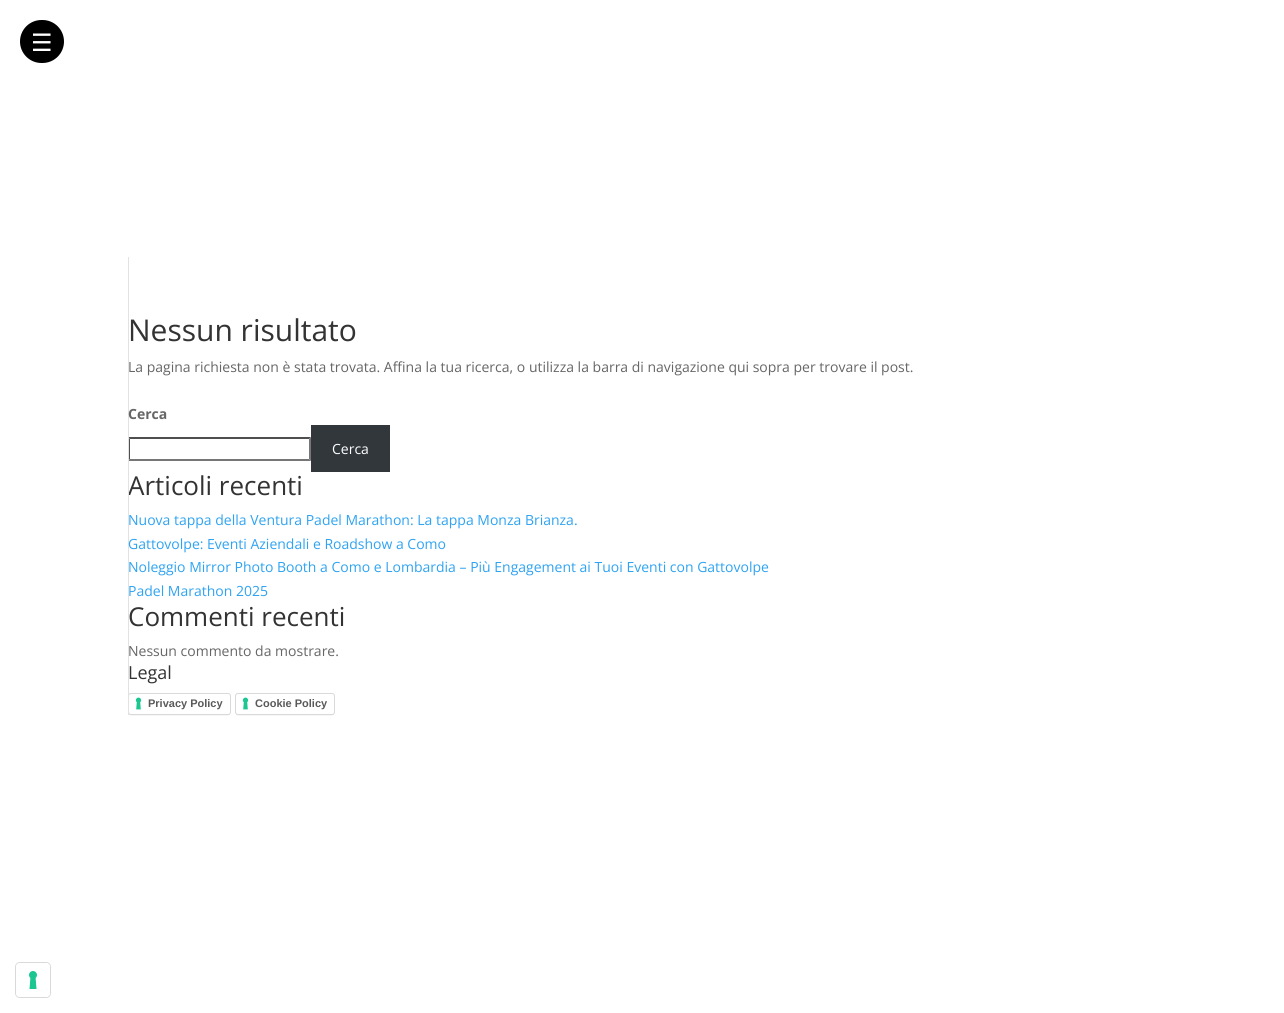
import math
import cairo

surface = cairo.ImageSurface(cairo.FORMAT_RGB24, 1284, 1013)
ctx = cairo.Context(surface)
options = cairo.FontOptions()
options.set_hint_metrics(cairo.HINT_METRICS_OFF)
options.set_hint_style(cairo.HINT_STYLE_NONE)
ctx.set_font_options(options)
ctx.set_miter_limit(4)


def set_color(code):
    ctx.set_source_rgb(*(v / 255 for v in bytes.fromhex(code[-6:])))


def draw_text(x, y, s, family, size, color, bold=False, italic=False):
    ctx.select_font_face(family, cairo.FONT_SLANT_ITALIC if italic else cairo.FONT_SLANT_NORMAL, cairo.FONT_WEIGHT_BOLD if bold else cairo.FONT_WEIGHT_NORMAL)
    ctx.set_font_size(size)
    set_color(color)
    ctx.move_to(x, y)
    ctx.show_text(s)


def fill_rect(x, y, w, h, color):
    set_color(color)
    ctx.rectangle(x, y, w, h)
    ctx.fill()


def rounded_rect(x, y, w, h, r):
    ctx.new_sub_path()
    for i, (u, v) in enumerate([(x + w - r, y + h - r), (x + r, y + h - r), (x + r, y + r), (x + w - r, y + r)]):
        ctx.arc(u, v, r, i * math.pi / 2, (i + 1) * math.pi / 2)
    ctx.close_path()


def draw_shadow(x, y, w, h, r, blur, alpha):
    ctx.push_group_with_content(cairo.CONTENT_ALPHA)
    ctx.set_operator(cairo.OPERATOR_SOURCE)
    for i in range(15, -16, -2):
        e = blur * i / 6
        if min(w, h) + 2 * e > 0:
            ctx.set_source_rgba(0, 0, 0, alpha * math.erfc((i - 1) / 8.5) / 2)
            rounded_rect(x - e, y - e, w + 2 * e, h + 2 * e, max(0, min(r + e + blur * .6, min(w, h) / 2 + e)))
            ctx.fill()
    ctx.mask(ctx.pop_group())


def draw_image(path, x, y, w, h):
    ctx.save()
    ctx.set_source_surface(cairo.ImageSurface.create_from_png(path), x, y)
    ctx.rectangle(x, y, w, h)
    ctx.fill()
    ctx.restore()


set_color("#ffffff")
ctx.paint()
set_color("#000000")
rounded_rect(20, 20, 44, 43, 21.5)
ctx.fill()
draw_text(31, 51, "☰", "DejaVu Sans", 24, "#ffffff")
set_color("#4f4f4f")
ctx.new_path()
ctx.move_to(128, 437)
ctx.line_to(311, 437)
ctx.line_to(309, 439)
ctx.line_to(130, 439)
ctx.close_path()
ctx.fill()
set_color("#767676")
ctx.new_path()
ctx.move_to(311, 437)
ctx.line_to(311, 461)
ctx.line_to(309, 459)
ctx.line_to(309, 439)
ctx.close_path()
ctx.fill()
ctx.new_path()
ctx.move_to(311, 461)
ctx.line_to(128, 461)
ctx.line_to(130, 459)
ctx.line_to(309, 459)
ctx.close_path()
ctx.fill()
set_color("#4f4f4f")
ctx.new_path()
ctx.move_to(128, 461)
ctx.line_to(128, 437)
ctx.line_to(130, 439)
ctx.line_to(130, 459)
ctx.close_path()
ctx.fill()
draw_text(128, 495, "Articoli recenti", "Open Sans", 26, "#333333")
set_color("#000000")
draw_shadow(129, 695, 101, 20, 2, 0.5, 0.15)
set_color("#ffffff")
rounded_rect(128, 693, 103, 22, 3)
ctx.fill()
draw_image("assets/img1.png", 135, 697, 7, 13)
rounded_rect(128.5, 693.5, 102, 21, 2.5)
ctx.set_source_rgba(0, 0, 0, 0.15)
ctx.set_line_width(1)
ctx.stroke()
fill_rect(128, 257, 1, 458, "#e2e2e2")
draw_text(128, 341, "Nessun risultato", "Open Sans", 30, "#333333")
draw_text(128, 372, "La pagina richiesta non è stata trovata. Affina la tua ricerca, o utilizza la barra di navigazione qui sopra per trovare il post.", "Open Sans", 14, "#666666")
draw_text(128, 419, "Cerca", "Open Sans", 14, "#666666", bold=True)
fill_rect(311, 425, 79, 47, "#32373c")
draw_text(332, 454, "Cerca", "Open Sans", 14, "#ffffff")
draw_text(128, 525, "Nuova tappa della Ventura Padel Marathon: La tappa Monza Brianza.", "Open Sans", 14, "#2ea3f2")
draw_text(128, 549, "Gattovolpe: Eventi Aziendali e Roadshow a Como", "Open Sans", 14, "#2ea3f2")
draw_text(128, 572, "Noleggio Mirror Photo Booth a Como e Lombardia – Più Engagement ai Tuoi Eventi con Gattovolpe", "Open Sans", 14, "#2ea3f2")
draw_text(128, 596, "Padel Marathon 2025", "Open Sans", 14, "#2ea3f2")
draw_text(128, 626, "Commenti recenti", "Open Sans", 26, "#333333")
draw_text(128, 656, "Nessun commento da mostrare.", "Open Sans", 14, "#666666")
draw_text(128, 679, "Legal", "Open Sans", 18, "#333333")
draw_text(148, 707, "Privacy Policy", "Liberation Sans", 11, "#595959", bold=True)
set_color("#000000")
draw_shadow(236, 695, 98, 20, 2, 0.5, 0.15)
set_color("#ffffff")
rounded_rect(235, 693, 100, 22, 3)
ctx.fill()
draw_image("assets/img1.png", 242, 697, 7, 13)
rounded_rect(235.5, 693.5, 99, 21, 2.5)
ctx.set_source_rgba(0, 0, 0, 0.15)
ctx.stroke()
draw_text(255, 707, "Cookie Policy", "Liberation Sans", 11, "#595959", bold=True)
rounded_rect(15.5, 962.5, 35, 35, 4.5)
set_color("#d9d9d9")
ctx.stroke()
set_color("#ffffff")
rounded_rect(16, 963, 34, 34, 4)
ctx.fill()
draw_image("assets/img2.png", 29, 971, 8, 18)
surface.write_to_png("output.png")
